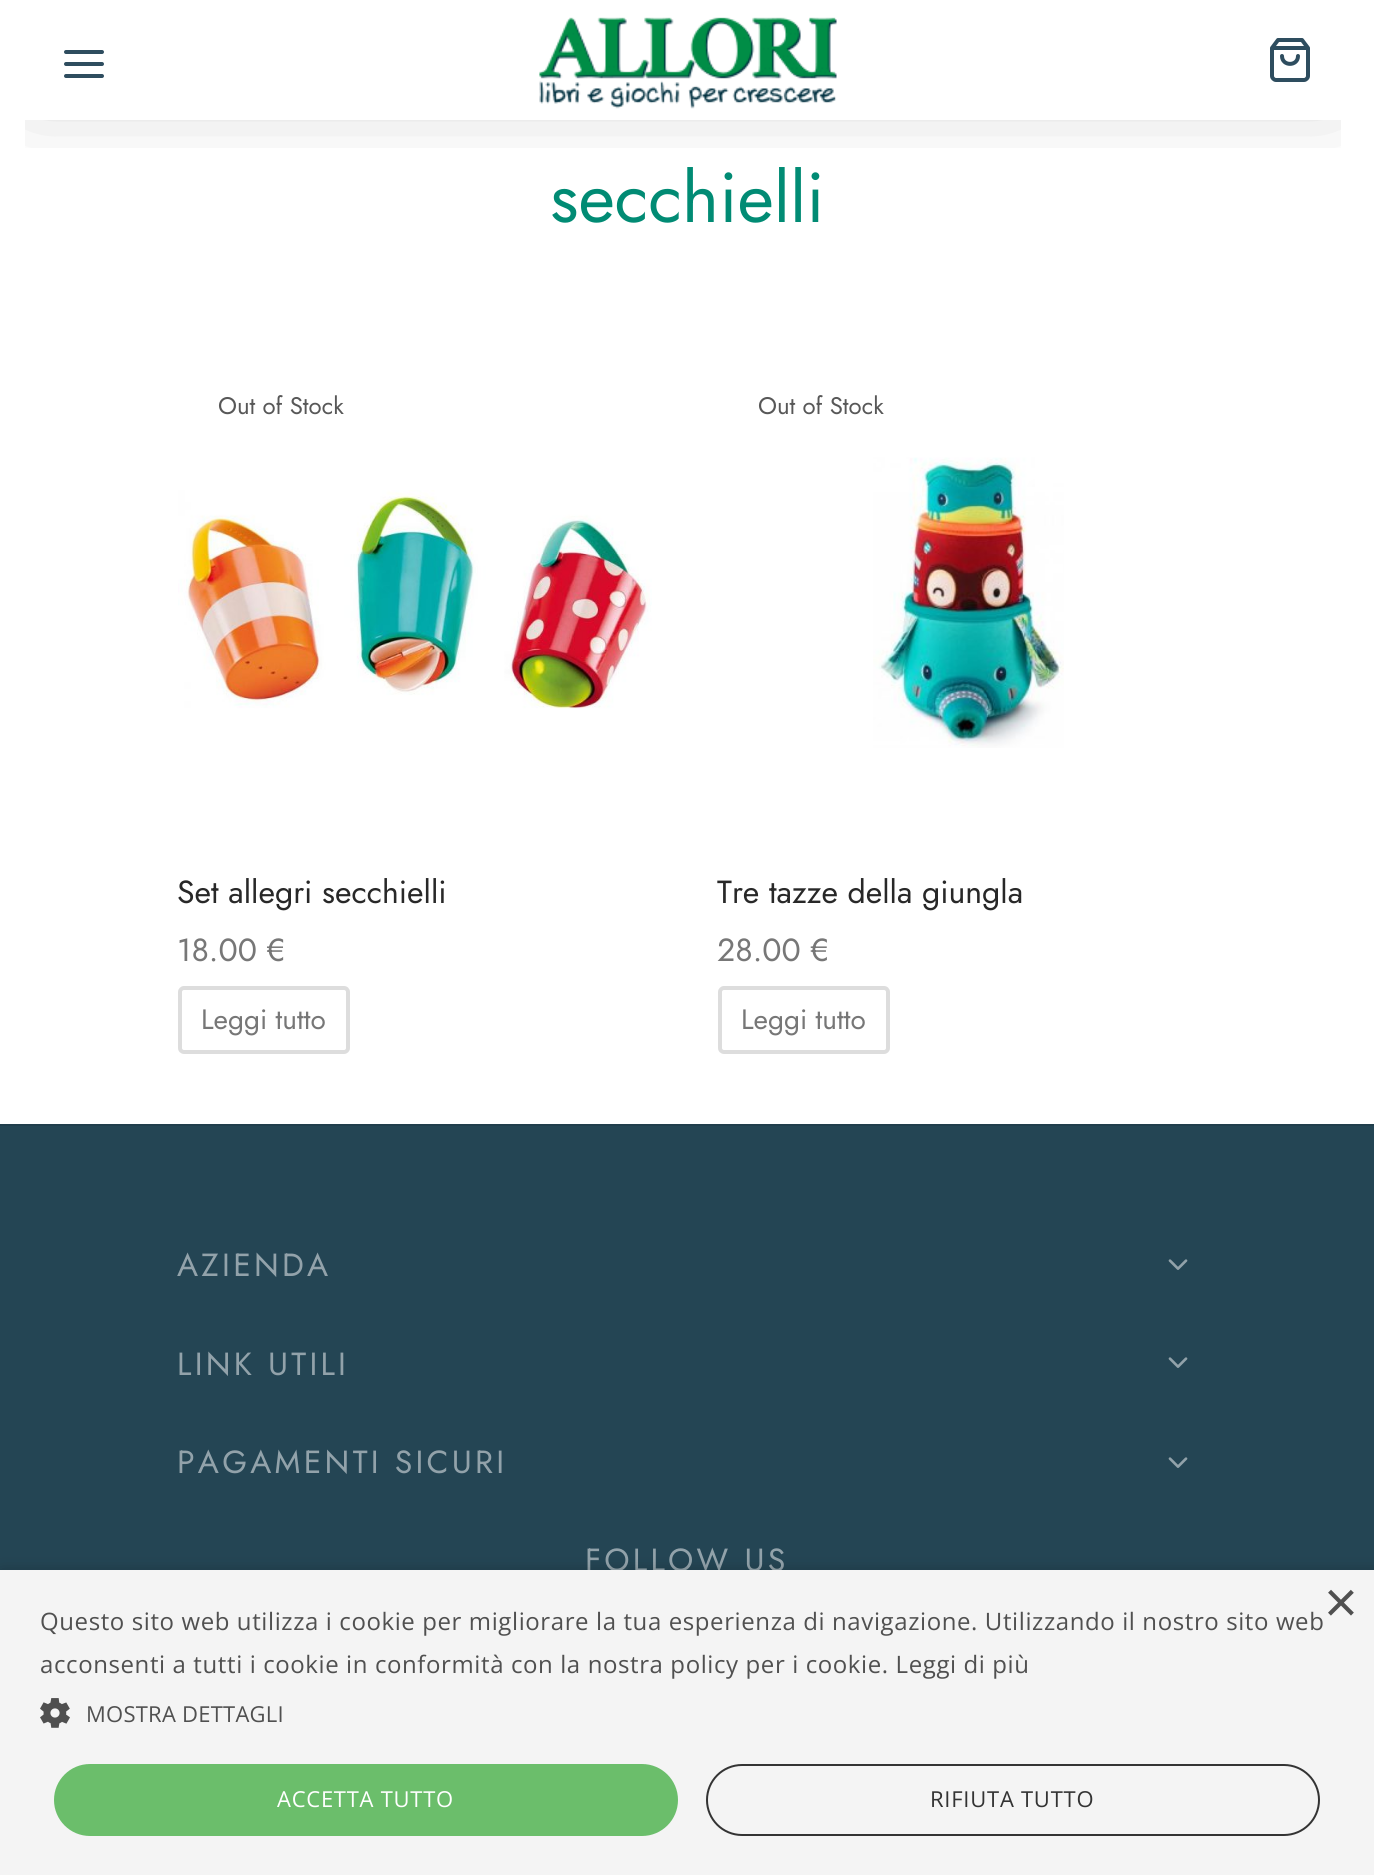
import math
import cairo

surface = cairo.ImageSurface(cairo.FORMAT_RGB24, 1374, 1875)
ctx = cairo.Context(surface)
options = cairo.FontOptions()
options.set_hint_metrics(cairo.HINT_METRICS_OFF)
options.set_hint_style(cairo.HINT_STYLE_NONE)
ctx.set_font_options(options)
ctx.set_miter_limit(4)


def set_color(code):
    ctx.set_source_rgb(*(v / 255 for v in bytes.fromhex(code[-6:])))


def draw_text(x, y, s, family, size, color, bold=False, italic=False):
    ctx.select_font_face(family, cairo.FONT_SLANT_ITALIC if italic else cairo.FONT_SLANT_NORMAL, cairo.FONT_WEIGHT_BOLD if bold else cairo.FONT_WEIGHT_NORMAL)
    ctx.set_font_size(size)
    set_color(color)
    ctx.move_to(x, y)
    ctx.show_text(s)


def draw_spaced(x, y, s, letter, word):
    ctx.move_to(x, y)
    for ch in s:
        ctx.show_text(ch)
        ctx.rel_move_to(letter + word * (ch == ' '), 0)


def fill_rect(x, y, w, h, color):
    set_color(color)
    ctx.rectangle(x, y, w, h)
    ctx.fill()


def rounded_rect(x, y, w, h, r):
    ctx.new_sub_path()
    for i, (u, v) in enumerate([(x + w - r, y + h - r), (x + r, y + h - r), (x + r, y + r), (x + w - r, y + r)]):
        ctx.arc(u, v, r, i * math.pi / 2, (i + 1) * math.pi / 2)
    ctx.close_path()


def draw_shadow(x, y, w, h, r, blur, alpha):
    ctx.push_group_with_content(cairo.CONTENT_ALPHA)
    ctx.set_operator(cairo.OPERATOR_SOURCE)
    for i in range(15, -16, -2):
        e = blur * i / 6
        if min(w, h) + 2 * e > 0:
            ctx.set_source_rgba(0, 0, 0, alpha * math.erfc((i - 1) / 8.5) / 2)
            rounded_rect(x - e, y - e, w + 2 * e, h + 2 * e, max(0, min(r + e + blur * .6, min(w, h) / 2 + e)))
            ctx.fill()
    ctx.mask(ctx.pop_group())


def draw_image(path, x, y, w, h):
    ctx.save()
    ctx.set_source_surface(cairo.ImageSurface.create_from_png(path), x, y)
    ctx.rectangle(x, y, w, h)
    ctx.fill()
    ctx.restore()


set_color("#ffffff")
ctx.paint()
ctx.save()
ctx.rectangle(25, 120, 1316, 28)
ctx.clip()
set_color("#000000")
draw_shadow(36, 44, 1294, 40, 0, 45, 0.3)
ctx.restore()
ctx.new_path()
ctx.move_to(66, 64)
ctx.line_to(102, 64)
ctx.move_to(66, 52)
ctx.line_to(102, 52)
ctx.move_to(66, 76)
ctx.line_to(102, 76)
set_color("#2e4d5f")
ctx.set_line_width(4)
ctx.set_line_cap(cairo.LINE_CAP_ROUND)
ctx.set_line_join(cairo.LINE_JOIN_ROUND)
ctx.stroke()
draw_image("assets/img1.png", 539, 17, 298, 92)
ctx.new_path()
ctx.move_to(1278, 40)
ctx.line_to(1272, 48)
ctx.line_to(1272, 76)
ctx.curve_to(1272, 78, 1274, 80, 1276, 80)
ctx.line_to(1304, 80)
ctx.curve_to(1306, 80, 1308, 78, 1308, 76)
ctx.line_to(1308, 48)
ctx.line_to(1302, 40)
ctx.close_path()
ctx.move_to(1272, 48)
ctx.line_to(1308, 48)
ctx.move_to(1298, 56)
ctx.curve_to(1298, 66.5, 1282, 66.5, 1282, 56)
ctx.stroke()
draw_text(550, 222, "secchielli", "Jost", 70.5, "#018b74")
draw_text(218, 414, "Out of Stock", "Jost", 24, "#585858")
draw_image("assets/img2.png", 178, 490, 474, 219)
draw_text(177, 903, "Set allegri secchielli", "Jost", 32, "#282828")
draw_text(177, 961, "18.00 €", "Jost", 32, "#777777")
rounded_rect(180, 988, 168, 64, 4)
set_color("#dddddd")
ctx.set_line_cap(cairo.LINE_CAP_BUTT)
ctx.set_line_join(cairo.LINE_JOIN_MITER)
ctx.stroke()
draw_text(201, 1029, "Leggi tutto", "Jost", 28, "#777777")
draw_text(758, 414, "Out of Stock", "Jost", 24, "#585858")
draw_image("assets/img3.png", 873, 457, 191, 291)
draw_text(717, 903, "Tre tazze della giungla", "Jost", 32, "#282828")
draw_text(717, 961, "28.00 €", "Jost", 32, "#777777")
rounded_rect(720, 988, 168, 64, 4)
set_color("#dddddd")
ctx.stroke()
draw_text(741, 1029, "Leggi tutto", "Jost", 28, "#777777")
fill_rect(0, 1126, 1374, 444, "#244554")
fill_rect(0, 1124, 1374, 2, "#203e4c")
ctx.set_font_size(32)
set_color("#92a2aa")
draw_spaced(177, 1276, "AZIENDA", 3.25, 0)
draw_image("assets/img4.png", 1168, 1259, 20, 11)
draw_spaced(177, 1375, "LINK UTILI", 3.25, 0)
draw_image("assets/img4.png", 1168, 1357, 20, 11)
draw_spaced(177, 1473, "PAGAMENTI SICURI", 3.25, 0)
draw_image("assets/img4.png", 1168, 1457, 20, 11)
draw_spaced(585, 1571, "FOLLOW US", 3.25, 0)
set_color("#000000")
draw_shadow(2, 1574, 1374, 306, 0, 8, 0.35)
fill_rect(0, 1570, 1374, 305, "#f4f4f4")
draw_text(1324, 1622, "×", "Liberation Sans", 58, "#505050")
ctx.select_font_face("Open Sans")
ctx.set_font_size(24)
draw_spaced(40, 1630, "Questo sito web utilizza i cookie per migliorare la tua esperienza di navigazione. Utilizzando il nostro sito web", 0.6, 0)
draw_spaced(40, 1673, "acconsenti a tutti i cookie in conformità con la nostra policy per i cookie. Leggi di più", 0.6, 0)
draw_image("assets/img5.png", 40, 1698, 30, 30)
ctx.set_font_size(22)
draw_spaced(86, 1722, "MOSTRA DETTAGLI", 0.25, 0)
set_color("#6bbe6b")
rounded_rect(54, 1764, 624, 72, 36)
ctx.fill()
set_color("#ffffff")
draw_spaced(277, 1807, "ACCETTA TUTTO", 0.75, 0)
rounded_rect(707, 1765, 612, 70, 35)
set_color("#333333")
ctx.set_line_width(2)
ctx.stroke()
draw_spaced(930, 1807, "RIFIUTA TUTTO", 0.75, 0)
surface.write_to_png("output.png")
